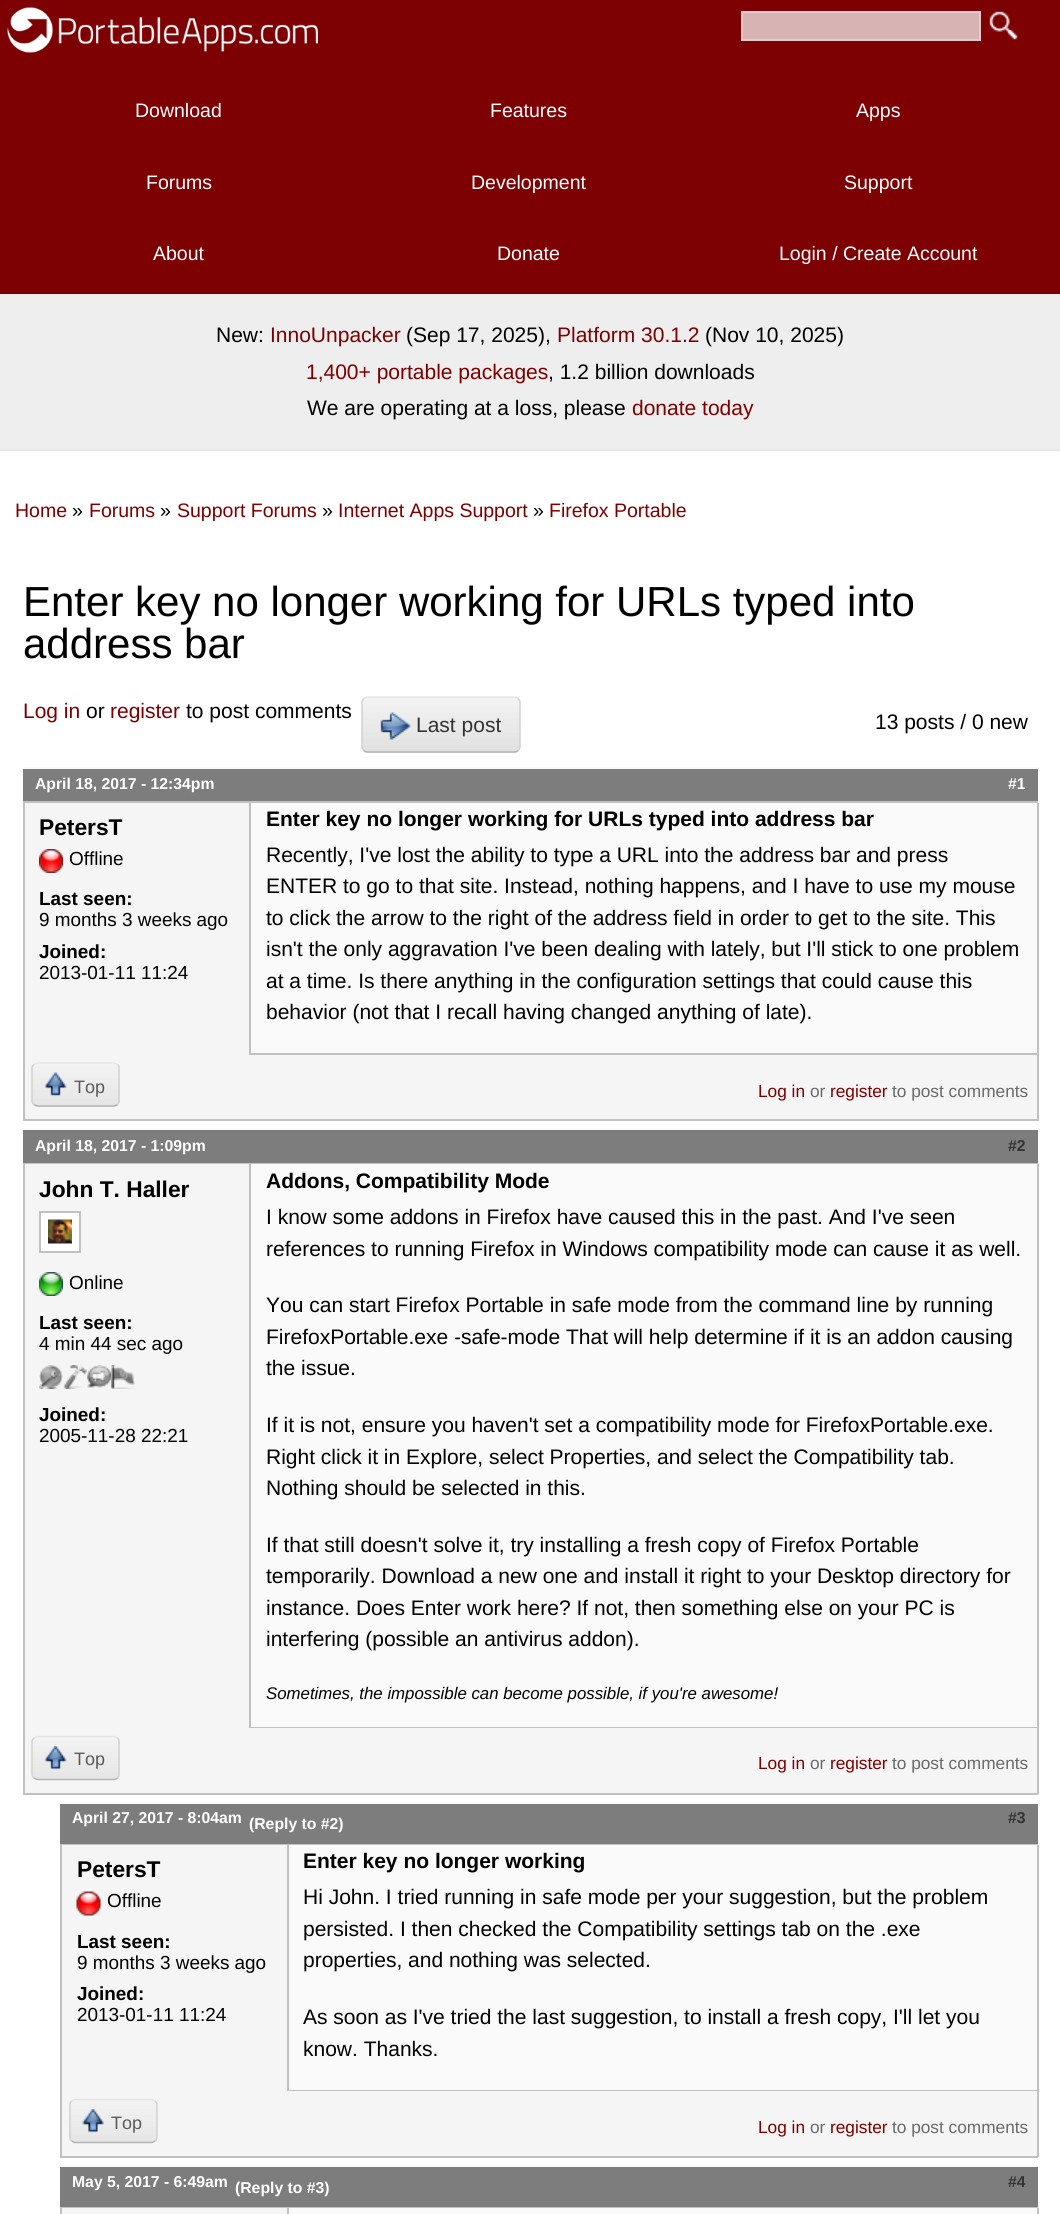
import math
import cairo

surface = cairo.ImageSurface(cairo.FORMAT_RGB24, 1060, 2214)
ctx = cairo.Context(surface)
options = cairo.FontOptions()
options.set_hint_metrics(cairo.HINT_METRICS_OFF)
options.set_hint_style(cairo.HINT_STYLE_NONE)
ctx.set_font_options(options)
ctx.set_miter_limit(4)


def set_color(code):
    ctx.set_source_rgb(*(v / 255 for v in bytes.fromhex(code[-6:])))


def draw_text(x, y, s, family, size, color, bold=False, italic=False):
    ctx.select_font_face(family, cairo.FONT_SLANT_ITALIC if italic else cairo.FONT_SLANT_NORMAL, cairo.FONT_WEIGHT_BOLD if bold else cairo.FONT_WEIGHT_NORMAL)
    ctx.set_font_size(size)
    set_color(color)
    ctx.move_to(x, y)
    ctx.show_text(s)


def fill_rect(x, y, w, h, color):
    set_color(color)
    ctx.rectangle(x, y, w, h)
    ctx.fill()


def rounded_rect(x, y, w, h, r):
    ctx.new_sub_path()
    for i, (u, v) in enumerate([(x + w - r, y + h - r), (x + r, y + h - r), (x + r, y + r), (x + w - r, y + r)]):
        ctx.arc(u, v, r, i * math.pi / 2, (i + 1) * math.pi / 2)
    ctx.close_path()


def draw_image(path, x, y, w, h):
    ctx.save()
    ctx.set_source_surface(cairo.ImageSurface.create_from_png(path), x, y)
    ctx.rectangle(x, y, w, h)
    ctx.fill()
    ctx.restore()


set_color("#ffffff")
ctx.paint()
fill_rect(0, 0, 1060, 294, "#7d0003")
draw_image("assets/img1.png", 7, 7, 311, 46)
set_color("#d8b3b3")
ctx.rectangle(742, 12, 238, 28)
ctx.fill_preserve()
set_color("#e4caca")
ctx.stroke()
draw_image("assets/img2.png", 989, 11, 29, 29)
draw_text(135, 117, "Download", "Arimo", 19.5, "#ffffff")
draw_text(490, 117, "Features", "Arimo", 19.5, "#ffffff")
draw_text(856, 117, "Apps", "Arimo", 19.5, "#ffffff")
draw_text(146, 189, "Forums", "Arimo", 19.5, "#ffffff")
draw_text(471, 189, "Development", "Arimo", 19.5, "#ffffff")
draw_text(844, 189, "Support", "Arimo", 19.5, "#ffffff")
draw_text(153, 260, "About", "Arimo", 19.5, "#ffffff")
draw_text(497, 260, "Donate", "Arimo", 19.5, "#ffffff")
draw_text(779, 260, "Login / Create Account", "Arimo", 19.5, "#ffffff")
fill_rect(0, 294, 1060, 155, "#eeeeee")
fill_rect(0, 449, 1060, 2, "#e7e7e7")
draw_text(216, 342, "New:", "Arimo", 21, "#000000")
draw_text(270, 342, "InnoUnpacker", "Arimo", 21, "#7d0000")
draw_text(406, 342, "(Sep 17, 2025),", "Arimo", 21, "#000000")
draw_text(557, 342, "Platform 30.1.2", "Arimo", 21, "#7d0000")
draw_text(705, 342, "(Nov 10, 2025)", "Arimo", 21, "#000000")
draw_text(306, 379, "1,400+ portable packages", "Arimo", 21, "#7d0000")
draw_text(548, 379, ", 1.2 billion downloads", "Arimo", 21, "#000000")
draw_text(307, 415, "We are operating at a loss, please", "Arimo", 21, "#000000")
draw_text(632, 415, "donate today", "Arimo", 21, "#7d0000")
draw_text(15, 517, "Home", "Arimo", 19.5, "#7d0000")
draw_text(72, 517, "»", "Arimo", 19.5, "#000000")
draw_text(89, 517, "Forums", "Arimo", 19.5, "#7d0000")
draw_text(160, 517, "»", "Arimo", 19.5, "#000000")
draw_text(177, 517, "Support Forums", "Arimo", 19.5, "#7d0000")
draw_text(322, 517, "»", "Arimo", 19.5, "#000000")
draw_text(338, 517, "Internet Apps Support", "Arimo", 19.5, "#7d0000")
draw_text(533, 517, "»", "Arimo", 19.5, "#000000")
draw_text(549, 517, "Firefox Portable", "Arimo", 19.5, "#7d0000")
draw_text(23, 616, "Enter key no longer working for URLs typed into", "Arimo", 42, "#000000")
draw_text(23, 658, "address bar", "Arimo", 42, "#000000")
draw_text(23, 718, "Log in", "Arimo", 21, "#7d0000")
draw_text(86, 718, "or", "Arimo", 21, "#000000")
draw_text(110, 718, "register", "Arimo", 21, "#7d0000")
draw_text(186, 718, "to post comments", "Arimo", 21, "#000000")
draw_image("assets/img3.png", 361, 697, 160, 56)
ctx.new_path()
ctx.move_to(364, 698.5)
ctx.curve_to(365, 697.5, 366, 697, 367.5, 697)
ctx.line_to(514.5, 697)
ctx.curve_to(516, 697, 517, 697.5, 518, 698.5)
set_color("#e4e4e4")
ctx.set_line_width(1.5)
ctx.stroke()
ctx.new_path()
ctx.move_to(518, 698.5)
ctx.curve_to(519, 699.5, 520, 700.5, 520, 702)
ctx.line_to(520, 747)
ctx.curve_to(520, 748.5, 519, 749.5, 518, 750.5)
set_color("#d2d2d2")
ctx.stroke()
ctx.new_path()
ctx.move_to(518, 750.5)
ctx.curve_to(517, 751.5, 516, 752, 514.5, 752)
ctx.line_to(367.5, 752)
ctx.curve_to(366, 752, 365, 751.5, 364, 750.5)
set_color("#b4b4b4")
ctx.stroke()
ctx.new_path()
ctx.move_to(364, 750.5)
ctx.curve_to(363, 749.5, 362, 748.5, 362, 747)
ctx.line_to(362, 702)
ctx.curve_to(362, 700.5, 363, 699.5, 364, 698.5)
set_color("#d2d2d2")
ctx.stroke()
draw_image("assets/img4.png", 380, 712, 31, 28)
draw_text(416, 732, "Last post", "Liberation Sans", 21, "#333333")
draw_text(875, 729, "13 posts / 0 new", "Arimo", 21, "#000000")
fill_rect(23, 769, 1015, 32, "#7d7d7d")
fill_rect(23, 767, 1015, 2, "#fafafa")
fill_rect(23, 801, 1015, 2, "#c1c1c1")
draw_text(35, 789, "April 18, 2017 - 12:34pm", "Arimo", 15.75, "#ffffff", bold=True)
draw_text(1008, 789, "#1", "Arimo", 15.75, "#ffffff", bold=True)
fill_rect(25, 803, 224, 252, "#f5f5f5")
fill_rect(1037, 803, 2, 318, "#c1c1c1")
fill_rect(23, 803, 2, 252, "#c1c1c1")
draw_text(39, 835, "PetersT", "Arimo", 22.75, "#000000", bold=True)
draw_image("assets/img5.png", 39, 849, 24, 24)
draw_text(69, 865, "Offline", "Arimo", 18.9, "#000000")
draw_text(39, 905, "Last seen:", "Arimo", 18.9, "#000000", bold=True)
draw_text(39, 926, "9 months 3 weeks ago", "Arimo", 18.9, "#000000")
draw_text(39, 958, "Joined:", "Arimo", 18.9, "#000000", bold=True)
draw_text(39, 979, "2013-01-11 11:24", "Arimo", 18.9, "#000000")
fill_rect(251, 803, 786, 250, "#fafafa")
fill_rect(249, 1053, 788, 2, "#c1c1c1")
fill_rect(249, 803, 2, 252, "#c1c1c1")
draw_text(266, 826, "Enter key no longer working for URLs typed into address bar", "Arimo", 21, "#000000", bold=True)
draw_text(266, 862, "Recently, I've lost the ability to type a URL into the address bar and press", "Arimo", 21, "#000000")
draw_text(266, 893, "ENTER to go to that site. Instead, nothing happens, and I have to use my mouse", "Arimo", 21, "#000000")
draw_text(266, 925, "to click the arrow to the right of the address field in order to get to the site. This", "Arimo", 21, "#000000")
draw_text(266, 956, "isn't the only aggravation I've been dealing with lately, but I'll stick to one problem", "Arimo", 21, "#000000")
draw_text(266, 988, "at a time. Is there anything in the configuration settings that could cause this", "Arimo", 21, "#000000")
draw_text(266, 1019, "behavior (not that I recall having changed anything of late).", "Arimo", 21, "#000000")
fill_rect(25, 1055, 1012, 64, "#f5f5f5")
fill_rect(23, 1119, 1015, 2, "#c1c1c1")
fill_rect(23, 1055, 2, 66, "#c1c1c1")
set_color("#ffffff")
rounded_rect(32, 1062, 88, 45, 6)
ctx.fill()
draw_image("assets/img6.png", 32, 1063, 88, 44)
ctx.new_path()
ctx.move_to(34, 1064.5)
ctx.line_to(37, 1063)
ctx.line_to(114.5, 1063)
ctx.line_to(117.5, 1064.5)
set_color("#e4e4e4")
ctx.stroke()
ctx.new_path()
ctx.move_to(117.5, 1064.5)
ctx.curve_to(118.5, 1065.5, 119, 1066.5, 119, 1068)
ctx.line_to(119, 1101)
ctx.curve_to(119, 1102.5, 118.5, 1103.5, 117.5, 1104.5)
set_color("#d2d2d2")
ctx.stroke()
ctx.new_path()
ctx.move_to(117.5, 1104.5)
ctx.line_to(114.5, 1106)
ctx.line_to(37, 1106)
ctx.line_to(34, 1104.5)
set_color("#b4b4b4")
ctx.stroke()
ctx.new_path()
ctx.move_to(34, 1104.5)
ctx.curve_to(33, 1103.5, 32, 1102.5, 32, 1101)
ctx.line_to(32, 1068)
ctx.curve_to(32, 1066.5, 33, 1065.5, 34, 1064.5)
set_color("#d2d2d2")
ctx.stroke()
draw_image("assets/img7.png", 44, 1072, 23, 25)
draw_text(74, 1093, "Top", "Liberation Sans", 18, "#5a5a5a")
draw_text(758, 1097, "Log in", "Arimo", 17.25, "#7d0000")
draw_text(810, 1097, "or", "Arimo", 17.25, "#68696b")
draw_text(830, 1097, "register", "Arimo", 17.25, "#7d0000")
draw_text(892, 1097, "to post comments", "Arimo", 17.25, "#68696b")
fill_rect(23, 1130, 1015, 33, "#7d7d7d")
fill_rect(23, 1128, 1015, 2, "#fafafa")
fill_rect(23, 1163, 1015, 1, "#c1c1c1")
draw_text(35, 1151, "April 18, 2017 - 1:09pm", "Arimo", 15.75, "#ffffff", bold=True)
draw_text(1008, 1151, "#2", "Arimo", 15.75, "#333333", bold=True)
fill_rect(25, 1164, 224, 564, "#f5f5f5")
fill_rect(1037, 1164, 2, 630, "#c1c1c1")
fill_rect(23, 1164, 2, 564, "#c1c1c1")
draw_text(39, 1197, "John T. Haller", "Arimo", 22.75, "#000000", bold=True)
set_color("#ffffff")
ctx.rectangle(40, 1212, 40, 40)
ctx.fill_preserve()
set_color("#c1c1c1")
ctx.set_line_width(2)
ctx.stroke()
draw_image("assets/img8.png", 48, 1219, 24, 25)
draw_image("assets/img9.png", 39, 1272, 24, 24)
draw_text(69, 1289, "Online", "Arimo", 18.9, "#000000")
draw_text(39, 1329, "Last seen:", "Arimo", 18.9, "#000000", bold=True)
draw_text(39, 1350, "4 min 44 sec ago", "Arimo", 18.9, "#000000")
draw_image("assets/img10.png", 39, 1365, 24, 24)
draw_image("assets/img11.png", 63, 1365, 24, 24)
draw_image("assets/img12.png", 87, 1365, 24, 23)
draw_image("assets/img13.png", 111, 1365, 24, 24)
draw_text(39, 1421, "Joined:", "Arimo", 18.9, "#000000", bold=True)
draw_text(39, 1442, "2005-11-28 22:21", "Arimo", 18.9, "#000000")
fill_rect(251, 1164, 786, 563, "#fafafa")
fill_rect(249, 1727, 788, 1, "#c1c1c1")
fill_rect(249, 1164, 2, 564, "#c1c1c1")
draw_text(266, 1188, "Addons, Compatibility Mode", "Arimo", 21, "#000000", bold=True)
draw_text(266, 1224, "I know some addons in Firefox have caused this in the past. And I've seen", "Arimo", 21, "#000000")
draw_text(266, 1256, "references to running Firefox in Windows compatibility mode can cause it as well.", "Arimo", 21, "#000000")
draw_text(266, 1312, "You can start Firefox Portable in safe mode from the command line by running", "Arimo", 21, "#000000")
draw_text(266, 1344, "FirefoxPortable.exe -safe-mode That will help determine if it is an addon causing", "Arimo", 21, "#000000")
draw_text(266, 1375, "the issue.", "Arimo", 21, "#000000")
draw_text(266, 1432, "If it is not, ensure you haven't set a compatibility mode for FirefoxPortable.exe.", "Arimo", 21, "#000000")
draw_text(266, 1464, "Right click it in Explore, select Properties, and select the Compatibility tab.", "Arimo", 21, "#000000")
draw_text(266, 1495, "Nothing should be selected in this.", "Arimo", 21, "#000000")
draw_text(266, 1552, "If that still doesn't solve it, try installing a fresh copy of Firefox Portable", "Arimo", 21, "#000000")
draw_text(266, 1583, "temporarily. Download a new one and install it right to your Desktop directory for", "Arimo", 21, "#000000")
draw_text(266, 1615, "instance. Does Enter work here? If not, then something else on your PC is", "Arimo", 21, "#000000")
draw_text(266, 1646, "interfering (possible an antivirus addon).", "Arimo", 21, "#000000")
draw_text(266, 1699, "Sometimes, the impossible can become possible, if you're awesome!", "Arimo", 16.8, "#000000", italic=True)
fill_rect(25, 1728, 1012, 65, "#f5f5f5")
fill_rect(23, 1793, 1015, 2, "#c1c1c1")
fill_rect(23, 1728, 2, 66, "#c1c1c1")
set_color("#ffffff")
rounded_rect(32, 1736, 88, 45, 6)
ctx.fill()
draw_image("assets/img14.png", 32, 1737, 88, 44)
ctx.new_path()
ctx.move_to(34, 1738)
ctx.line_to(37, 1736.5)
ctx.line_to(114.5, 1736.5)
ctx.line_to(117.5, 1738)
set_color("#e4e4e4")
ctx.set_line_width(1.5)
ctx.stroke()
ctx.new_path()
ctx.move_to(117.5, 1738)
ctx.curve_to(118.5, 1739, 119, 1740, 119, 1741.5)
ctx.line_to(119, 1774.5)
ctx.curve_to(119, 1776, 118.5, 1777, 117.5, 1778)
set_color("#d2d2d2")
ctx.stroke()
ctx.new_path()
ctx.move_to(117.5, 1778)
ctx.line_to(114.5, 1779.5)
ctx.line_to(37, 1779.5)
ctx.line_to(34, 1778)
set_color("#b4b4b4")
ctx.stroke()
ctx.new_path()
ctx.move_to(34, 1778)
ctx.curve_to(33, 1777, 32, 1776, 32, 1774.5)
ctx.line_to(32, 1741.5)
ctx.curve_to(32, 1740, 33, 1739, 34, 1738)
set_color("#d2d2d2")
ctx.stroke()
draw_image("assets/img15.png", 44, 1746, 23, 24)
draw_text(74, 1765, "Top", "Liberation Sans", 18, "#5a5a5a")
draw_text(758, 1769, "Log in", "Arimo", 17.25, "#7d0000")
draw_text(810, 1769, "or", "Arimo", 17.25, "#68696b")
draw_text(830, 1769, "register", "Arimo", 17.25, "#7d0000")
draw_text(892, 1769, "to post comments", "Arimo", 17.25, "#68696b")
fill_rect(60, 1804, 978, 40, "#7d7d7d")
fill_rect(60, 1802, 978, 2, "#fafafa")
fill_rect(60, 1844, 978, 1, "#c1c1c1")
draw_text(72, 1823, "April 27, 2017 - 8:04am", "Arimo", 15.75, "#ffffff", bold=True)
draw_text(249, 1829, "(Reply to #2)", "Arimo", 15.75, "#ffffff", bold=True)
draw_text(1008, 1823, "#3", "Arimo", 15.75, "#333333", bold=True)
fill_rect(62, 1845, 225, 246, "#f5f5f5")
fill_rect(1037, 1845, 2, 312, "#c1c1c1")
fill_rect(60, 1845, 2, 246, "#c1c1c1")
draw_text(77, 1877, "PetersT", "Arimo", 22.75, "#000000", bold=True)
draw_image("assets/img16.png", 76, 1891, 25, 25)
draw_text(107, 1907, "Offline", "Arimo", 18.9, "#000000")
draw_text(77, 1948, "Last seen:", "Arimo", 18.9, "#000000", bold=True)
draw_text(77, 1969, "9 months 3 weeks ago", "Arimo", 18.9, "#000000")
draw_text(77, 2000, "Joined:", "Arimo", 18.9, "#000000", bold=True)
draw_text(77, 2021, "2013-01-11 11:24", "Arimo", 18.9, "#000000")
fill_rect(289, 1845, 748, 245, "#fafafa")
fill_rect(287, 2090, 750, 1, "#c1c1c1")
fill_rect(287, 1845, 2, 246, "#c1c1c1")
draw_text(303, 1868, "Enter key no longer working", "Arimo", 21, "#000000", bold=True)
draw_text(303, 1904, "Hi John. I tried running in safe mode per your suggestion, but the problem", "Arimo", 21, "#000000")
draw_text(303, 1936, "persisted. I then checked the Compatibility settings tab on the .exe", "Arimo", 21, "#000000")
draw_text(303, 1967, "properties, and nothing was selected.", "Arimo", 21, "#000000")
draw_text(303, 2024, "As soon as I've tried the last suggestion, to install a fresh copy, I'll let you", "Arimo", 21, "#000000")
draw_text(303, 2056, "know. Thanks.", "Arimo", 21, "#000000")
fill_rect(62, 2091, 975, 65, "#f5f5f5")
fill_rect(60, 2156, 978, 2, "#c1c1c1")
fill_rect(60, 2091, 2, 66, "#c1c1c1")
set_color("#ffffff")
rounded_rect(69, 2099, 89, 45, 6)
ctx.fill()
draw_image("assets/img17.png", 69, 2100, 89, 44)
ctx.new_path()
ctx.move_to(71.5, 2101)
ctx.line_to(74.5, 2099.5)
ctx.line_to(152, 2099.5)
ctx.line_to(155, 2101)
set_color("#e4e4e4")
ctx.stroke()
ctx.new_path()
ctx.move_to(155, 2101)
ctx.curve_to(156, 2102, 157, 2103, 157, 2104.5)
ctx.line_to(157, 2137.5)
ctx.curve_to(157, 2139, 156, 2140, 155, 2141)
set_color("#d2d2d2")
ctx.stroke()
ctx.new_path()
ctx.move_to(155, 2141)
ctx.line_to(152, 2142.5)
ctx.line_to(74.5, 2142.5)
ctx.line_to(71.5, 2141)
set_color("#b4b4b4")
ctx.stroke()
ctx.new_path()
ctx.move_to(71.5, 2141)
ctx.curve_to(70.5, 2140, 70, 2139, 70, 2137.5)
ctx.line_to(70, 2104.5)
ctx.curve_to(70, 2103, 70.5, 2102, 71.5, 2101)
set_color("#d2d2d2")
ctx.stroke()
draw_image("assets/img18.png", 82, 2109, 22, 24)
draw_text(111, 2129, "Top", "Liberation Sans", 18, "#5a5a5a")
draw_text(758, 2133, "Log in", "Arimo", 17.25, "#7d0000")
draw_text(810, 2133, "or", "Arimo", 17.25, "#68696b")
draw_text(830, 2133, "register", "Arimo", 17.25, "#7d0000")
draw_text(892, 2133, "to post comments", "Arimo", 17.25, "#68696b")
fill_rect(60, 2167, 978, 40, "#7d7d7d")
fill_rect(60, 2165, 978, 2, "#fafafa")
fill_rect(60, 2207, 978, 1, "#c1c1c1")
draw_text(72, 2187, "May 5, 2017 - 6:49am", "Arimo", 15.75, "#ffffff", bold=True)
draw_text(235, 2193, "(Reply to #3)", "Arimo", 15.75, "#ffffff", bold=True)
draw_text(1008, 2187, "#4", "Arimo", 15.75, "#333333", bold=True)
fill_rect(60, 2208, 227, 6, "#f5f5f5")
fill_rect(1037, 2208, 2, 6, "#c1c1c1")
fill_rect(60, 2208, 2, 6, "#c1c1c1")
fill_rect(287, 2208, 750, 6, "#fafafa")
fill_rect(287, 2208, 2, 6, "#c1c1c1")
surface.write_to_png("output.png")
